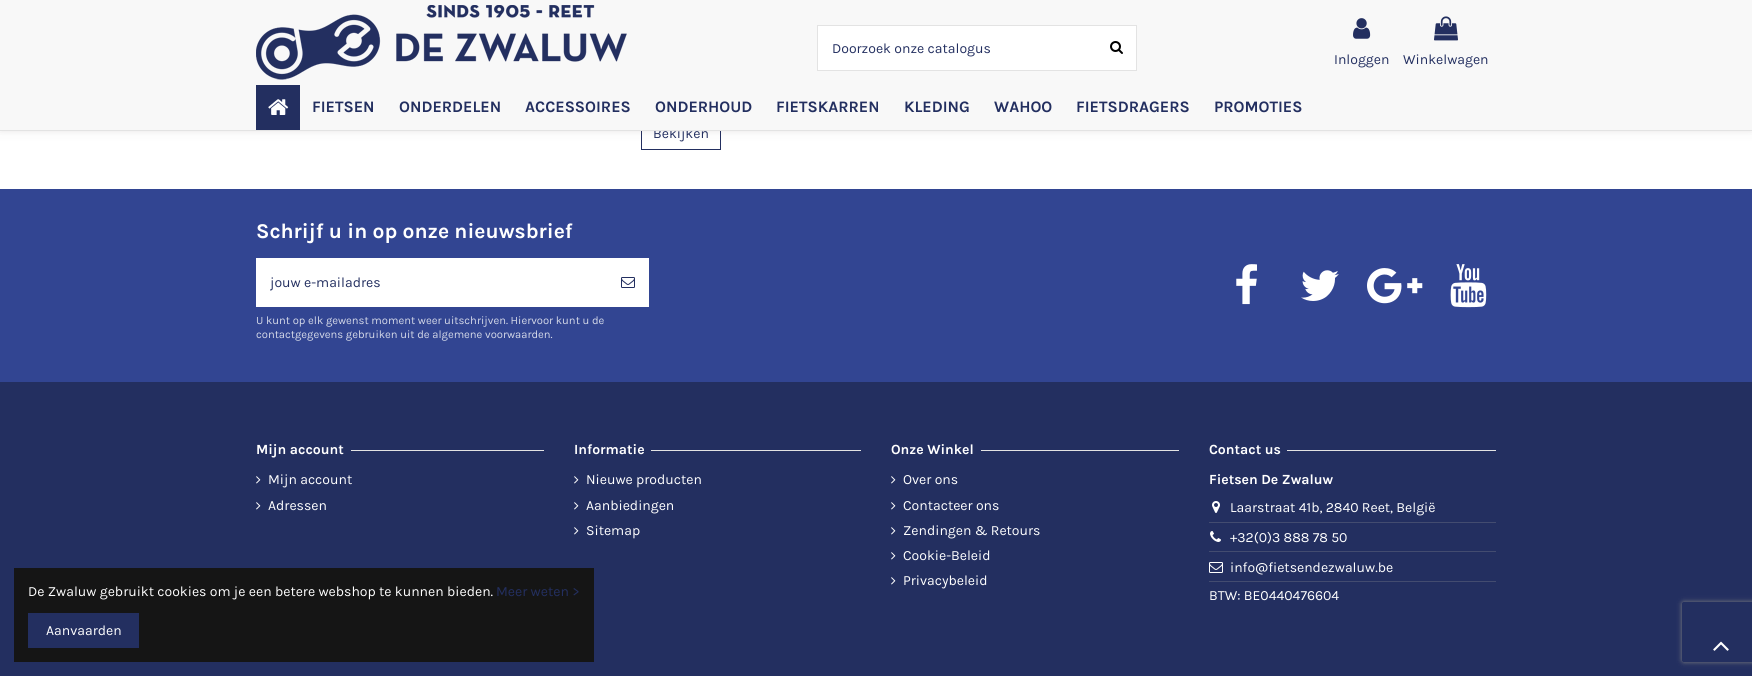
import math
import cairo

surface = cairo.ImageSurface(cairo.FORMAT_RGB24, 1752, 676)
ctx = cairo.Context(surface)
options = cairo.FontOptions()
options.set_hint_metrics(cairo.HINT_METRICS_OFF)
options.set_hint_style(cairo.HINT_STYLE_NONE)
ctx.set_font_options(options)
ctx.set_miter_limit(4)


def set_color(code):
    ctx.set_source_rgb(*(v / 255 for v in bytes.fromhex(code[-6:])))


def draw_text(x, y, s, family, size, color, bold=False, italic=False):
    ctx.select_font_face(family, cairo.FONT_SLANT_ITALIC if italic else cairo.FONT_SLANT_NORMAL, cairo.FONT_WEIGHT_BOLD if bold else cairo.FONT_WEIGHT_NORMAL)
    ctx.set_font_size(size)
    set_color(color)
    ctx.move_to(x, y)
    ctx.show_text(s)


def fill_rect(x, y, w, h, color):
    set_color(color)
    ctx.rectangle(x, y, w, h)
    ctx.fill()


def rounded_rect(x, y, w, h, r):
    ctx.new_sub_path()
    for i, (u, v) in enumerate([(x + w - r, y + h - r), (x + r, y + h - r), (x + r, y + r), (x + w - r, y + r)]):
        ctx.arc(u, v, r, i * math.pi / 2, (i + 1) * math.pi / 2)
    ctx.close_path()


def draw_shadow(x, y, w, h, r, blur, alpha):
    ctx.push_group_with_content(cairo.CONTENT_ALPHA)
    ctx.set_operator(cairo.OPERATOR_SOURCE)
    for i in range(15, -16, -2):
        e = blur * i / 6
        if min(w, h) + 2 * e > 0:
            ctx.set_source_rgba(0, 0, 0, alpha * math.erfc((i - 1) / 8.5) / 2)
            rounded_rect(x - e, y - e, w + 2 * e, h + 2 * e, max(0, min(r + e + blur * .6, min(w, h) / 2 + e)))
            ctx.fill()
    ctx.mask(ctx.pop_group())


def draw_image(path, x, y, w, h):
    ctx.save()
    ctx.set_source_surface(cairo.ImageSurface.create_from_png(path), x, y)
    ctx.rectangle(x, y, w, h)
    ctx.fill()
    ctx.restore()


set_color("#ffffff")
ctx.paint()
ctx.rectangle(641.5, 116.5, 79, 33)
set_color("#232f60")
ctx.set_line_width(1)
ctx.stroke()
set_color("#3d3939")
draw_shadow(0, -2, 1752, 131, 0, 5.5, 0.17)
draw_text(653, 138, "Bekijken", "Karla", 14, "#232f60")
fill_rect(0, 0, 1752, 130, "#f8f8f8")
fill_rect(0, 130, 1752, 1, "#e3e3e3")
draw_image("assets/img1.png", 256, 5, 371, 75)
set_color("#ffffff")
ctx.rectangle(817.5, 25.5, 319, 45)
ctx.fill_preserve()
set_color("#e3e3e3")
ctx.stroke()
draw_text(832, 53, "Doorzoek onze catalogus", "Karla", 14, "#232f60")
draw_image("assets/img2.png", 1110, 41, 13, 13)
draw_image("assets/img3.png", 1353, 18, 18, 21)
draw_text(1334, 64, "Inloggen", "Karla", 14, "#232f60")
draw_image("assets/img4.png", 1434, 16, 24, 25)
draw_text(1403, 64, "Winkelwagen", "Karla", 14, "#232f60")
fill_rect(256, 85, 44, 45, "#232f60")
draw_image("assets/img5.png", 268, 99, 21, 16)
draw_text(312, 112, "FIETSEN", "Karla", 16, "#232f60", bold=True)
draw_text(399, 112, "ONDERDELEN", "Karla", 16, "#232f60", bold=True)
draw_text(525, 112, "ACCESSOIRES", "Karla", 16, "#232f60", bold=True)
draw_text(655, 112, "ONDERHOUD", "Karla", 16, "#232f60", bold=True)
draw_text(776, 112, "FIETSKARREN", "Karla", 16, "#232f60", bold=True)
draw_text(904, 112, "KLEDING", "Karla", 16, "#232f60", bold=True)
draw_text(994, 112, "WAHOO", "Karla", 16, "#232f60", bold=True)
draw_text(1076, 112, "FIETSDRAGERS", "Karla", 16, "#232f60", bold=True)
draw_text(1214, 112, "PROMOTIES", "Karla", 16, "#232f60", bold=True)
fill_rect(0, 382, 1752, 294, "#232f60")
fill_rect(0, 189, 1752, 193, "#324592")
draw_text(256, 238, "Schrijf u in op onze nieuwsbrief", "Karla", 21, "#ffffff", bold=True)
fill_rect(256, 258, 393, 49, "#ffffff")
ctx.save()
ctx.rectangle(270, 274, 323, 17)
ctx.clip()
draw_text(270, 287, "jouw e-mailadres", "Karla", 14, "#232f60")
ctx.restore()
draw_image("assets/img6.png", 621, 277, 14, 11)
draw_text(256, 324, "U kunt op elk gewenst moment weer uitschrijven. Hiervoor kunt u de", "Karla", 11.2, "#d6dae9")
draw_text(256, 338, "contactgegevens gebruiken uit de algemene voorwaarden.", "Karla", 11.2, "#d6dae9")
draw_image("assets/img7.png", 1236, 264, 21, 41)
draw_image("assets/img8.png", 1301, 270, 38, 31)
draw_image("assets/img9.png", 1367, 268, 56, 36)
draw_image("assets/img10.png", 1450, 264, 37, 44)
draw_text(256, 454, "Mijn account", "Karla", 14, "#ffffff", bold=True)
fill_rect(351, 450, 193, 1, "#e3e3e3")
draw_image("assets/img11.png", 256, 476, 5, 8)
draw_text(268, 484, "Mijn account", "Karla", 14, "#ffffff")
draw_image("assets/img11.png", 256, 502, 5, 8)
draw_text(268, 510, "Adressen", "Karla", 14, "#ffffff")
draw_text(574, 454, "Informatie", "Karla", 14, "#ffffff", bold=True)
fill_rect(651, 450, 210, 1, "#e3e3e3")
draw_image("assets/img11.png", 574, 476, 5, 8)
draw_text(586, 484, "Nieuwe producten", "Karla", 14, "#ffffff")
draw_image("assets/img11.png", 574, 502, 5, 8)
draw_text(586, 510, "Aanbiedingen", "Karla", 14, "#ffffff")
draw_image("assets/img11.png", 574, 527, 5, 8)
draw_text(586, 535, "Sitemap", "Karla", 14, "#ffffff")
draw_text(891, 454, "Onze Winkel", "Karla", 14, "#ffffff", bold=True)
fill_rect(981, 450, 198, 1, "#e3e3e3")
draw_image("assets/img11.png", 891, 476, 5, 8)
draw_text(903, 484, "Over ons", "Karla", 14, "#ffffff")
draw_image("assets/img11.png", 891, 502, 5, 8)
draw_text(903, 510, "Contacteer ons", "Karla", 14, "#ffffff")
draw_image("assets/img11.png", 891, 527, 5, 8)
draw_text(903, 535, "Zendingen & Retours", "Karla", 14, "#ffffff")
draw_image("assets/img11.png", 891, 552, 5, 8)
draw_text(903, 560, "Cookie-Beleid", "Karla", 14, "#ffffff")
draw_image("assets/img11.png", 891, 577, 5, 8)
draw_text(903, 585, "Privacybeleid", "Karla", 14, "#ffffff")
draw_text(1209, 454, "Contact us", "Karla", 14, "#ffffff", bold=True)
fill_rect(1287, 450, 209, 1, "#e3e3e3")
draw_text(1209, 484, "Fietsen De Zwaluw", "Karla", 14, "#ffffff", bold=True)
draw_image("assets/img12.png", 1212, 501, 8, 12)
draw_text(1230, 512, "Laarstraat 41b, 2840 Reet, België", "Karla", 14, "#ffffff")
fill_rect(1209, 522, 287, 1, "#434c70")
draw_image("assets/img13.png", 1210, 531, 11, 11)
draw_text(1230, 542, "+32(0)3 888 78 50", "Karla", 14, "#ffffff")
fill_rect(1209, 551, 287, 1, "#434c70")
draw_image("assets/img14.png", 1209, 562, 14, 11)
draw_text(1230, 572, "info@fietsendezwaluw.be", "Karla", 14, "#ffffff")
fill_rect(1209, 581, 287, 1, "#434c70")
draw_text(1209, 600, "BTW: BE0440476604", "Karla", 14, "#ffffff")
fill_rect(14, 568, 580, 94, "#151515")
draw_text(28, 596, "De Zwaluw gebruikt cookies om je een betere webshop te kunnen bieden.", "Karla", 14, "#ffffff")
draw_text(496, 596, "Meer weten >", "Karla", 14, "#232f60")
fill_rect(28, 613, 111, 35, "#232f60")
draw_text(46, 635, "Aanvaarden", "Karla", 14, "#ffffff")
ctx.save()
ctx.set_fill_rule(cairo.FILL_RULE_EVEN_ODD)
ctx.new_path()
ctx.move_to(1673, 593)
ctx.line_to(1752, 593)
ctx.line_to(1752, 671)
ctx.line_to(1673, 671)
ctx.close_path()
ctx.move_to(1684, 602)
ctx.line_to(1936, 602)
ctx.curve_to(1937, 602, 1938, 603, 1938, 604)
ctx.line_to(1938, 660)
ctx.curve_to(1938, 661, 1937, 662, 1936, 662)
ctx.line_to(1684, 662)
ctx.curve_to(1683, 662, 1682, 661, 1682, 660)
ctx.line_to(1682, 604)
ctx.curve_to(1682, 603, 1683, 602, 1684, 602)
ctx.close_path()
ctx.clip()
set_color("#808080")
draw_shadow(1682, 602, 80, 60, 2, 2.5, 1)
ctx.restore()
draw_image("assets/img15.png", 1713, 641, 16, 10)
surface.write_to_png("output.png")
